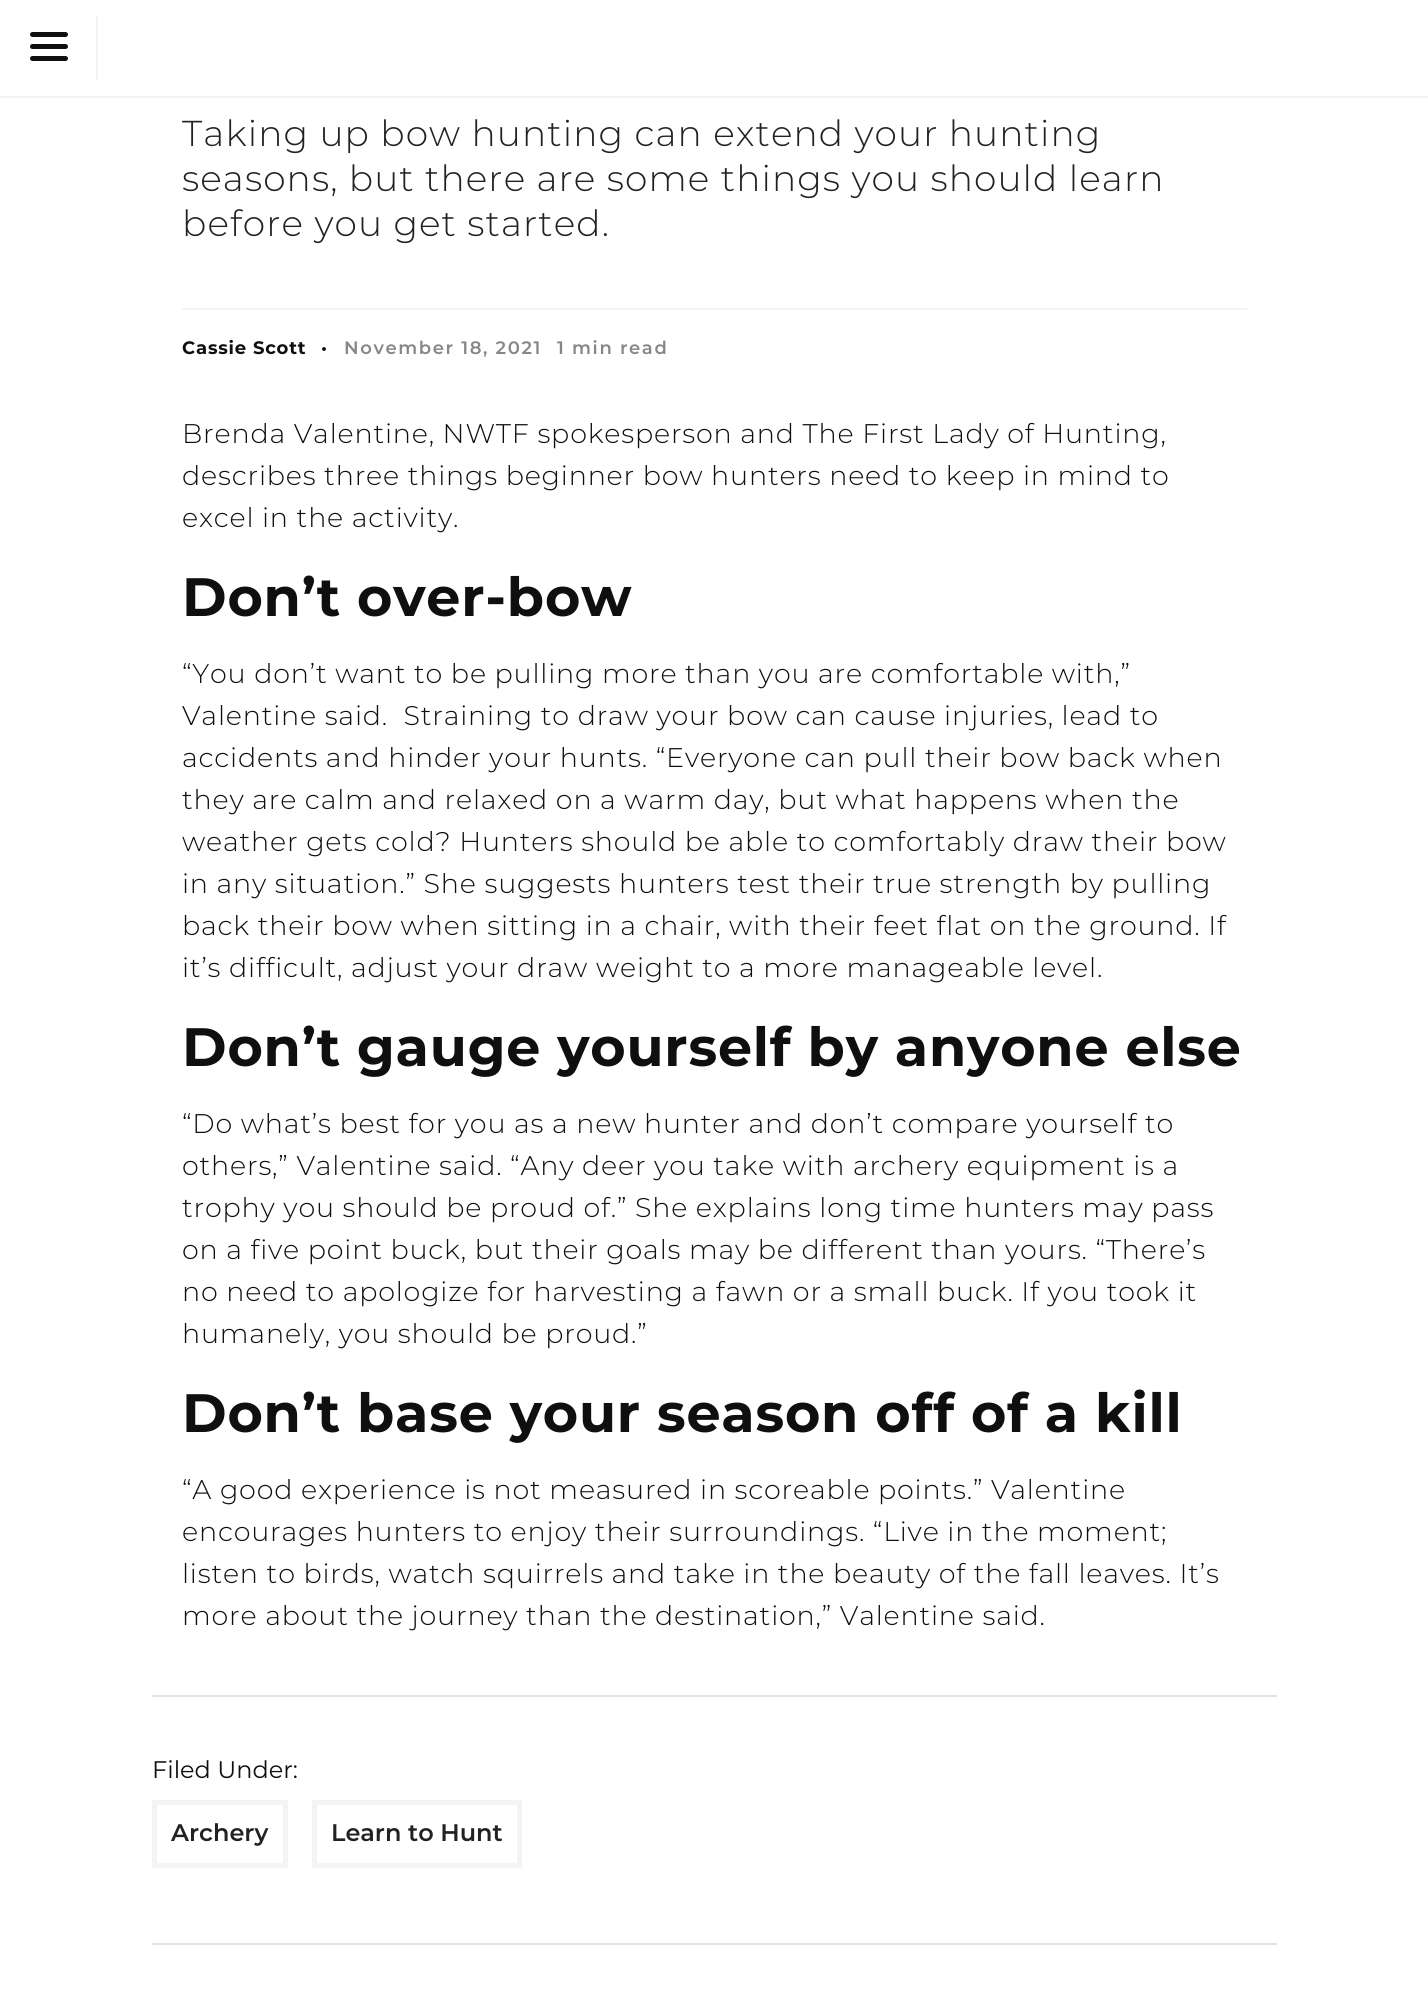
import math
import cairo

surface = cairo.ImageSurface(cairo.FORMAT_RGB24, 1428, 2004)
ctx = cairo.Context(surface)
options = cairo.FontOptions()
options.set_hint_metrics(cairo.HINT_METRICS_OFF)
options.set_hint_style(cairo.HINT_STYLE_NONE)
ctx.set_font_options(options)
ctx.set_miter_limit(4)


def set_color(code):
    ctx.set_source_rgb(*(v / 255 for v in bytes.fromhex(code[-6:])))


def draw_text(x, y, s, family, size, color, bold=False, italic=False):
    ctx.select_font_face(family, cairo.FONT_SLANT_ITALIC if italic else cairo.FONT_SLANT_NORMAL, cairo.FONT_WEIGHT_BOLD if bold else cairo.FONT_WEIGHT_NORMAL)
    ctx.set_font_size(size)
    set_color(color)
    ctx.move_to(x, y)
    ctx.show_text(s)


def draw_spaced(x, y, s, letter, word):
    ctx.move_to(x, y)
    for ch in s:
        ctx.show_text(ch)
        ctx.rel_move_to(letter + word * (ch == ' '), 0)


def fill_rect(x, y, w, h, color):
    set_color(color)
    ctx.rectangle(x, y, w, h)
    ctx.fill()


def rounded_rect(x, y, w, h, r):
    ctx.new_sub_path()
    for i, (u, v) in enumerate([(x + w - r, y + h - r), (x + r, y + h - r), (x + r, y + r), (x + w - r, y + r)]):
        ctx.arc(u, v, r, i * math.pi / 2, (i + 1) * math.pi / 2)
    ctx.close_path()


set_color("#ffffff")
ctx.paint()
fill_rect(0, 96, 1428, 2, "#f5f4f4")
fill_rect(96, 15, 2, 66, "#f5f4f4")
set_color("#0f0f0f")
rounded_rect(30, 32, 38, 5, 2.5)
ctx.fill()
rounded_rect(30, 44, 38, 5, 2.5)
ctx.fill()
rounded_rect(30, 56, 38, 5, 2.5)
ctx.fill()
ctx.select_font_face("Montserrat Light")
ctx.set_font_size(36)
set_color("#222222")
draw_spaced(182, 146, "Taking up bow hunting can extend your hunting", 1.08, 0)
draw_spaced(182, 191, "seasons, but there are some things you should learn", 1.08, 0)
draw_spaced(182, 236, "before you get started.", 1.08, 0)
fill_rect(182, 308, 1065, 2, "#f5f4f4")
ctx.select_font_face("Montserrat", cairo.FONT_SLANT_NORMAL, cairo.FONT_WEIGHT_BOLD)
ctx.set_font_size(18)
set_color("#0f0f0f")
draw_spaced(182, 354, "Cassie Scott", 0.8, 0)
ctx.select_font_face("Montserrat SemiBold")
draw_spaced(321, 354, "•", 1.6, 0)
set_color("#878787")
draw_spaced(344, 354, "November 18, 2021", 1.6, 0)
draw_spaced(557, 354, "1 min read", 1.6, 0)
ctx.select_font_face("Montserrat Light")
ctx.set_font_size(27)
set_color("#0f0f0f")
draw_spaced(182, 443, "Brenda Valentine, NWTF spokesperson and The First Lady of Hunting,", 0.8, 0)
draw_spaced(182, 485, "describes three things beginner bow hunters need to keep in mind to", 0.8, 0)
draw_spaced(182, 527, "excel in the activity.", 0.8, 0)
ctx.select_font_face("Montserrat", cairo.FONT_SLANT_NORMAL, cairo.FONT_WEIGHT_BOLD)
ctx.set_font_size(54)
draw_spaced(182, 616, "Don’t over-bow", 0.8, 0)
ctx.select_font_face("Montserrat Light")
ctx.set_font_size(27)
draw_spaced(182, 683, "“You don’t want to be pulling more than you are comfortable with,”", 0.8, 0)
draw_spaced(182, 725, "Valentine said.  Straining to draw your bow can cause injuries, lead to", 0.8, 0)
draw_spaced(182, 767, "accidents and hinder your hunts. “Everyone can pull their bow back when", 0.8, 0)
draw_spaced(182, 809, "they are calm and relaxed on a warm day, but what happens when the", 0.8, 0)
draw_spaced(182, 851, "weather gets cold? Hunters should be able to comfortably draw their bow", 0.8, 0)
draw_spaced(182, 893, "in any situation.” She suggests hunters test their true strength by pulling", 0.8, 0)
draw_spaced(182, 935, "back their bow when sitting in a chair, with their feet flat on the ground. If", 0.8, 0)
draw_spaced(182, 977, "it’s difficult, adjust your draw weight to a more manageable level.", 0.8, 0)
ctx.select_font_face("Montserrat", cairo.FONT_SLANT_NORMAL, cairo.FONT_WEIGHT_BOLD)
ctx.set_font_size(54)
draw_spaced(182, 1066, "Don’t gauge yourself by anyone else", 0.8, 0)
ctx.select_font_face("Montserrat Light")
ctx.set_font_size(27)
draw_spaced(182, 1133, "“Do what’s best for you as a new hunter and don’t compare yourself to", 0.8, 0)
draw_spaced(182, 1175, "others,” Valentine said. “Any deer you take with archery equipment is a", 0.8, 0)
draw_spaced(182, 1217, "trophy you should be proud of.” She explains long time hunters may pass", 0.8, 0)
draw_spaced(182, 1259, "on a five point buck, but their goals may be different than yours. “There’s", 0.8, 0)
draw_spaced(182, 1301, "no need to apologize for harvesting a fawn or a small buck. If you took it", 0.8, 0)
draw_spaced(182, 1343, "humanely, you should be proud.”", 0.8, 0)
ctx.select_font_face("Montserrat", cairo.FONT_SLANT_NORMAL, cairo.FONT_WEIGHT_BOLD)
ctx.set_font_size(54)
draw_spaced(182, 1432, "Don’t base your season off of a kill", 0.8, 0)
ctx.select_font_face("Montserrat Light")
ctx.set_font_size(27)
draw_spaced(182, 1499, "“A good experience is not measured in scoreable points.” Valentine", 0.8, 0)
draw_spaced(182, 1541, "encourages hunters to enjoy their surroundings. “Live in the moment;", 0.8, 0)
draw_spaced(182, 1583, "listen to birds, watch squirrels and take in the beauty of the fall leaves. It’s", 0.8, 0)
draw_spaced(182, 1625, "more about the journey than the destination,” Valentine said.", 0.8, 0)
fill_rect(152, 1695, 1125, 2, "#e2e2e2")
fill_rect(152, 1943, 1125, 2, "#e2e2e2")
draw_text(152, 1778, "Filed Under:", "Montserrat", 24, "#0f0f0f")
ctx.rectangle(154.5, 1802.5, 131, 63)
set_color("#f5f4f4")
ctx.set_line_width(5)
ctx.stroke()
draw_text(171, 1841, "Archery", "Montserrat SemiBold", 24, "#222222")
ctx.rectangle(314.5, 1802.5, 205, 63)
set_color("#f5f4f4")
ctx.stroke()
draw_text(331, 1841, "Learn to Hunt", "Montserrat SemiBold", 24, "#222222")
surface.write_to_png("output.png")
